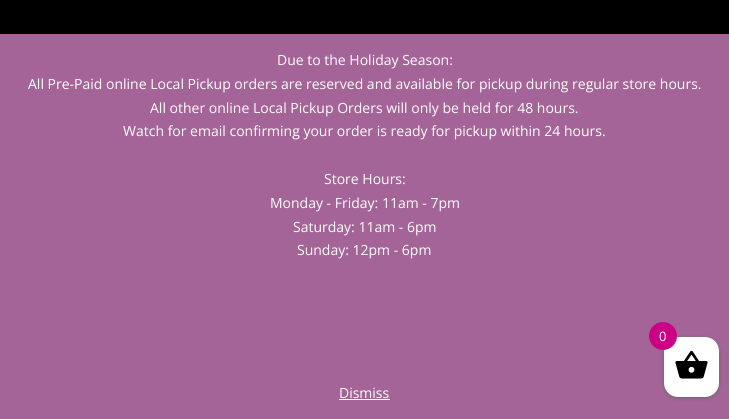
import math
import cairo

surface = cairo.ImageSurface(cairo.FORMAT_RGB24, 729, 419)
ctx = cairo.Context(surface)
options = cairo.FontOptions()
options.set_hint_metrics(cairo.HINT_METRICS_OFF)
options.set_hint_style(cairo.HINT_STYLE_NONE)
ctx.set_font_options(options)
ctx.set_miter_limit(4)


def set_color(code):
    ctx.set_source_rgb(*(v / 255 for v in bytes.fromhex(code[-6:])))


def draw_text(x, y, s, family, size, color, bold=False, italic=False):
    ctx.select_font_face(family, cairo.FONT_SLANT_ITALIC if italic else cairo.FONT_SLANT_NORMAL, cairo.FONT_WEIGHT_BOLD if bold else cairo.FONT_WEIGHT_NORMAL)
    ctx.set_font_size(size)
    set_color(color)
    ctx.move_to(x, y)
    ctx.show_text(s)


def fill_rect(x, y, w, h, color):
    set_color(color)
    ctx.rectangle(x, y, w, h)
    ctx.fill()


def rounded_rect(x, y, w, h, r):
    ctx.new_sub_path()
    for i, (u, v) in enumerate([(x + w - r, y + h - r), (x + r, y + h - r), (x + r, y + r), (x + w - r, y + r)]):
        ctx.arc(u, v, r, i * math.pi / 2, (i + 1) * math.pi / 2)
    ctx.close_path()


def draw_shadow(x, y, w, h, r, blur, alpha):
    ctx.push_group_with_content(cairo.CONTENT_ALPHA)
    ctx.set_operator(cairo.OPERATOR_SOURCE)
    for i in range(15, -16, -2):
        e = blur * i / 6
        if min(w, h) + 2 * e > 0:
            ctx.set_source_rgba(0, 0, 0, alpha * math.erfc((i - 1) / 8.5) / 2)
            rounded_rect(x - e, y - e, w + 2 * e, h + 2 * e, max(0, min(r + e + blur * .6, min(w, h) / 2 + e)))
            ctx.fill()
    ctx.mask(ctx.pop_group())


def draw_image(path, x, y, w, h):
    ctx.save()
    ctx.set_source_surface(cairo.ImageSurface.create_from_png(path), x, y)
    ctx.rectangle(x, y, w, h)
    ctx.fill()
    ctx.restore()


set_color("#000000")
ctx.paint()
fill_rect(0, 34, 729, 385, "#a46497")
draw_text(277, 65, "Due to the Holiday Season:", "Open Sans", 14, "#ffffff")
draw_text(28, 89, "All Pre-Paid online Local Pickup orders are reserved and available for pickup during regular store hours.", "Open Sans", 14, "#ffffff")
draw_text(150, 113, "All other online Local Pickup Orders will only be held for 48 hours.", "Open Sans", 14, "#ffffff")
draw_text(123, 136, "Watch for email confirming your order is ready for pickup within 24 hours.", "Open Sans", 14, "#ffffff")
draw_text(324, 184, "Store Hours:", "Open Sans", 14, "#ffffff")
draw_text(270, 208, "Monday - Friday: 11am - 7pm", "Open Sans", 14, "#ffffff")
draw_text(293, 232, "Saturday: 11am - 6pm", "Open Sans", 14, "#ffffff")
draw_text(297, 255, "Sunday: 12pm - 6pm", "Open Sans", 14, "#ffffff")
draw_text(339, 398, "Dismiss", "Open Sans", 14, "#ffffff")
fill_rect(339, 399, 51, 1, "#ffffff")
set_color("#666666")
draw_shadow(664, 338, 55, 60, 14, 2, 1)
set_color("#ffffff")
rounded_rect(664, 337, 55, 60, 14)
ctx.fill()
set_color("#cc0086")
ctx.arc(663, 336, 14, 0, 2 * math.pi)
ctx.fill()
draw_text(659, 341, "0", "Open Sans", 13, "#ffffff")
draw_image("assets/img1.png", 675, 350, 33, 29)
surface.write_to_png("output.png")
